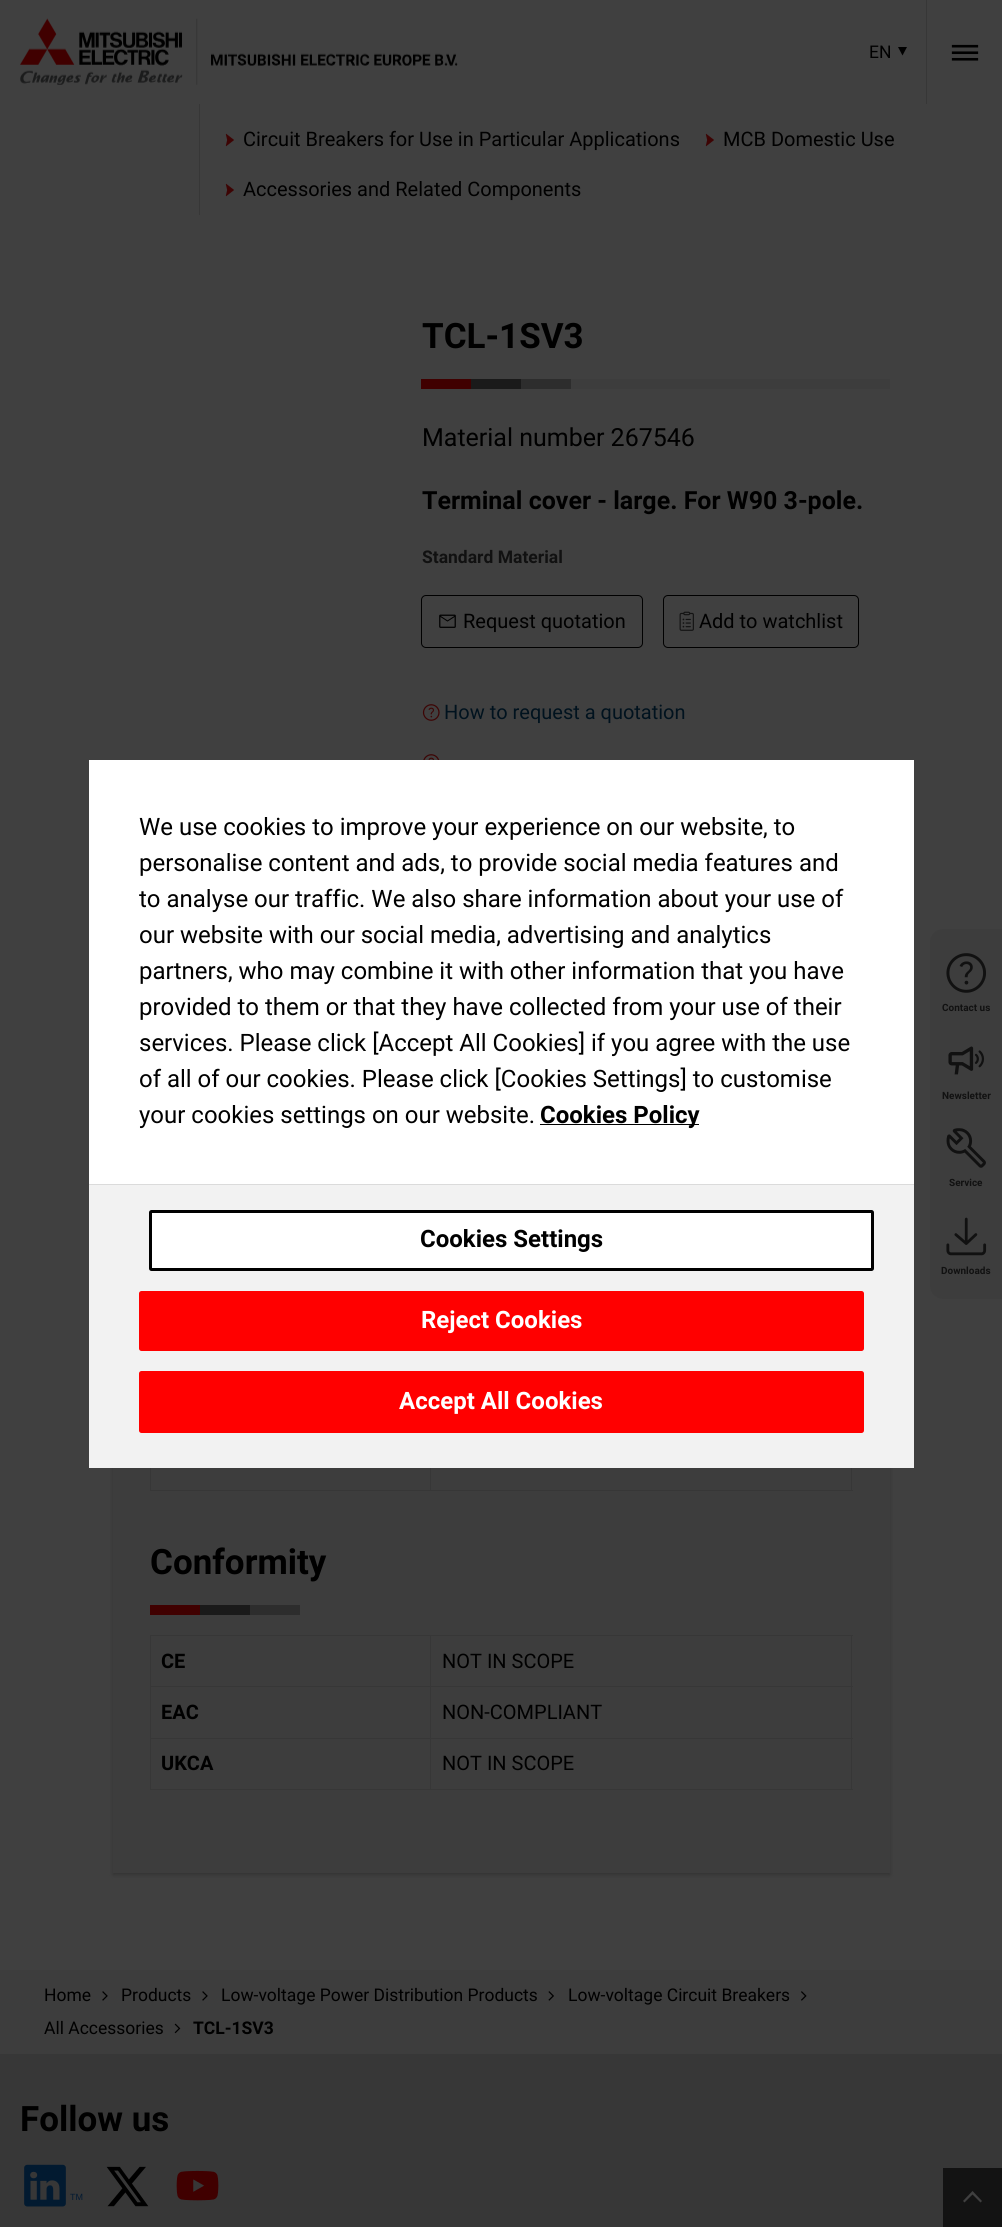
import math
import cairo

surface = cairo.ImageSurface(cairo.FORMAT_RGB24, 1002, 2227)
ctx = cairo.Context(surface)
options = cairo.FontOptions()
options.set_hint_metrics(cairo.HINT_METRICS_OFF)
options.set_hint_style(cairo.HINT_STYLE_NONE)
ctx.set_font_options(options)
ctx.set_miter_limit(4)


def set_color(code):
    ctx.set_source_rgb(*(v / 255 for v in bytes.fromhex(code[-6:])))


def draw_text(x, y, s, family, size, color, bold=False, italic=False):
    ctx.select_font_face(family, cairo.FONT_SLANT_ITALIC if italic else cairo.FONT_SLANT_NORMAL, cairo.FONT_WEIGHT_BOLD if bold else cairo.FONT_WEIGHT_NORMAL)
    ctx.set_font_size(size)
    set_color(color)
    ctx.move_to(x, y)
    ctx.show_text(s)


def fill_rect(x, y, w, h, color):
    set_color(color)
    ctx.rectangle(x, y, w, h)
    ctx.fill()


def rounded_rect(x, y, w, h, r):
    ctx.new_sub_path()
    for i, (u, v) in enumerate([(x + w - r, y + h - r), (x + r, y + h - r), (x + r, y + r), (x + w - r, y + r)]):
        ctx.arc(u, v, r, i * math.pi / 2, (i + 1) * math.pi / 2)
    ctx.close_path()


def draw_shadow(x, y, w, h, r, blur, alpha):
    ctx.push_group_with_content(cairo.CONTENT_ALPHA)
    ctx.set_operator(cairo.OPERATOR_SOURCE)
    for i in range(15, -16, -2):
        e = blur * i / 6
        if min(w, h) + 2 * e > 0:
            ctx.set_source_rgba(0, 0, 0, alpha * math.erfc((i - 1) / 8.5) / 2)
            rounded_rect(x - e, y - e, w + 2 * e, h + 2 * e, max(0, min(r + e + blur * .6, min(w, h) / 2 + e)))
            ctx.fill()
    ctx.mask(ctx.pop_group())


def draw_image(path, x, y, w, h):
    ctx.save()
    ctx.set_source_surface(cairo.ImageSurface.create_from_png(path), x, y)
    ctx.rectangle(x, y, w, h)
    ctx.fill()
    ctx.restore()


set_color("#404040")
ctx.paint()
draw_image("assets/img1.png", 20, 18, 438, 67)
draw_text(869, 58, "EN", "Roboto", 17.5, "#000000")
ctx.new_path()
ctx.move_to(902.5, 55.5)
ctx.line_to(898, 47)
ctx.line_to(907, 47)
ctx.close_path()
ctx.fill()
fill_rect(926, 0, 1, 104, "#373737")
draw_image("assets/img2.png", 951, 44, 28, 17)
fill_rect(199, 104, 1, 111, "#373737")
draw_image("assets/img3.png", 225, 133, 9, 14)
draw_text(243, 146, "Circuit Breakers for Use in Particular Applications", "Roboto", 20, "#000000")
draw_image("assets/img3.png", 705, 133, 9, 14)
draw_text(723, 146, "MCB Domestic Use", "Roboto", 20, "#000000")
draw_image("assets/img3.png", 225, 183, 9, 14)
draw_text(243, 196, "Accessories and Related Components", "Roboto", 20, "#000000")
draw_text(422, 348, "TCL-1SV3", "Roboto", 35, "#000000", bold=True)
fill_rect(571, 379, 319, 10, "#3d3d3d")
fill_rect(421, 379, 50, 10, "#400000")
fill_rect(471, 379, 50, 10, "#1a1a1a")
fill_rect(521, 379, 50, 10, "#2d2d2d")
draw_text(422, 446, "Material number 267546", "Roboto", 25, "#000000")
draw_text(422, 509, "Terminal cover - large. For W90 3-pole.", "Roboto", 25, "#000000", bold=True)
draw_text(422, 563, "Standard Material", "Roboto", 17.5, "#111111", bold=True)
rounded_rect(421.5, 595.5, 221, 52, 4.5)
set_color("#000000")
ctx.set_line_width(1)
ctx.stroke()
draw_image("assets/img4.png", 439, 614, 17, 14)
draw_text(463, 628, "Request quotation", "Roboto", 20, "#000000")
rounded_rect(663.5, 595.5, 195, 52, 4.5)
ctx.stroke()
draw_image("assets/img5.png", 679, 611, 15, 20)
draw_text(699, 628, "Add to watchlist", "Roboto", 20, "#000000")
draw_image("assets/img6.png", 422, 704, 18, 17)
draw_text(444, 719, "How to request a quotation", "Roboto", 20, "#00121e")
draw_image("assets/img7.png", 423, 754, 17, 6)
set_color("#000000")
draw_shadow(113, 955, 777, 920, 0, 2, 0.2)
fill_rect(113, 1468, 777, 405, "#3d3d3d")
fill_rect(851, 1468, 1, 23, "#373737")
fill_rect(430, 1490, 423, 1, "#373737")
fill_rect(430, 1468, 1, 23, "#373737")
fill_rect(150, 1490, 281, 1, "#373737")
fill_rect(150, 1468, 1, 23, "#373737")
draw_text(150, 1574, "Conformity", "Roboto", 35, "#000000", bold=True)
fill_rect(150, 1605, 50, 10, "#400000")
fill_rect(200, 1605, 50, 10, "#1a1a1a")
fill_rect(250, 1605, 50, 10, "#2d2d2d")
fill_rect(430, 1635, 423, 1, "#373737")
fill_rect(430, 1686, 423, 1, "#373737")
fill_rect(430, 1738, 423, 1, "#373737")
fill_rect(851, 1738, 1, 52, "#373737")
fill_rect(430, 1789, 423, 1, "#373737")
fill_rect(430, 1738, 1, 52, "#373737")
fill_rect(150, 1738, 281, 1, "#373737")
fill_rect(430, 1686, 1, 53, "#373737")
fill_rect(150, 1686, 281, 1, "#373737")
fill_rect(430, 1635, 1, 53, "#373737")
fill_rect(150, 1635, 281, 1, "#373737")
fill_rect(150, 1789, 281, 1, "#373737")
fill_rect(150, 1738, 1, 52, "#373737")
fill_rect(150, 1686, 1, 53, "#373737")
fill_rect(150, 1635, 1, 53, "#373737")
draw_text(161, 1668, "CE", "Roboto", 20, "#000000", bold=True)
fill_rect(851, 1686, 1, 53, "#373737")
fill_rect(851, 1635, 1, 53, "#373737")
draw_text(442, 1668, "NOT IN SCOPE", "Roboto", 20, "#000000")
draw_text(161, 1719, "EAC", "Roboto", 20, "#000000", bold=True)
draw_text(442, 1719, "NON-COMPLIANT", "Roboto", 20, "#000000")
draw_text(161, 1770, "UKCA", "Roboto", 20, "#000000", bold=True)
draw_text(442, 1770, "NOT IN SCOPE", "Roboto", 20, "#000000")
ctx.set_source_rgba(0.239, 0.239, 0.239, 0.95)
ctx.new_path()
ctx.move_to(943, 929)
ctx.line_to(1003, 929)
ctx.line_to(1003, 1299)
ctx.line_to(943, 1299)
ctx.curve_to(936, 1299, 930, 1293, 930, 1286)
ctx.line_to(930, 942)
ctx.curve_to(930, 935, 936, 929, 943, 929)
ctx.close_path()
ctx.fill()
draw_image("assets/img8.png", 946, 953, 41, 40)
draw_text(942, 1011, "Contact us", "Roboto", 10, "#111111", bold=True)
draw_image("assets/img9.png", 948, 1046, 37, 29)
draw_text(942, 1099, "Newsletter", "Roboto", 10, "#111111", bold=True)
draw_image("assets/img10.png", 946, 1128, 40, 40)
draw_text(949, 1186, "Service", "Roboto", 10, "#111111", bold=True)
draw_image("assets/img11.png", 946, 1217, 41, 39)
draw_text(941, 1274, "Downloads", "Roboto", 10, "#111111", bold=True)
fill_rect(0, 2054, 1002, 173, "#373737")
fill_rect(943, 2168, 59, 59, "#131313")
set_color("#404040")
ctx.new_path()
ctx.move_to(980.5, 2202.5)
ctx.line_to(982, 2201)
ctx.line_to(972.5, 2191)
ctx.line_to(963, 2201)
ctx.line_to(964.5, 2202.5)
ctx.line_to(972.5, 2194.5)
ctx.close_path()
ctx.fill()
fill_rect(0, 1970, 1002, 84, "#3d3d3d")
draw_text(44, 2001, "Home", "Roboto", 17.5, "#000000")
draw_image("assets/img12.png", 102, 1991, 6, 10)
draw_text(121, 2001, "Products", "Roboto", 17.5, "#000000")
draw_image("assets/img12.png", 202, 1991, 6, 10)
draw_text(221, 2001, "Low-voltage Power Distribution Products", "Roboto", 17.5, "#000000")
draw_image("assets/img13.png", 548, 1991, 6, 10)
draw_text(568, 2001, "Low-voltage Circuit Breakers", "Roboto", 17.5, "#000000")
draw_image("assets/img14.png", 801, 1991, 6, 10)
draw_text(44, 2034, "All Accessories", "Roboto", 17.5, "#000000")
draw_image("assets/img15.png", 174, 2023, 7, 11)
draw_text(193, 2034, "TCL-1SV3", "Roboto", 17.5, "#000000", bold=True)
draw_text(20, 2131, "Follow us", "Roboto", 35, "#000000", bold=True)
draw_image("assets/img16.png", 24, 2164, 42, 43)
draw_text(70, 2200, "TM", "Liberation Sans", 9, "#031a31")
draw_image("assets/img17.png", 106, 2166, 43, 41)
draw_image("assets/img18.png", 176, 2170, 43, 31)
fill_rect(89, 760, 825, 424, "#ffffff")
draw_text(139, 835, "We use cookies to improve your experience on our website, to", "Roboto", 24, "#000000")
draw_text(139, 871, "personalise content and ads, to provide social media features and", "Roboto", 24, "#000000")
draw_text(139, 907, "to analyse our traffic. We also share information about your use of", "Roboto", 24, "#000000")
draw_text(139, 943, "our website with our social media, advertising and analytics", "Roboto", 24, "#000000")
draw_text(139, 979, "partners, who may combine it with other information that you have", "Roboto", 24, "#000000")
draw_text(139, 1015, "provided to them or that they have collected from your use of their", "Roboto", 24, "#000000")
draw_text(139, 1051, "services. Please click [Accept All Cookies] if you agree with the use", "Roboto", 24, "#000000")
draw_text(139, 1087, "of all of our cookies. Please click [Cookies Settings] to customise", "Roboto", 24, "#000000")
draw_text(139, 1123, "your cookies settings on our website.", "Roboto", 24, "#000000")
fill_rect(540, 1124, 159, 1, "#000000")
draw_text(540, 1123, "Cookies Policy", "Roboto", 24, "#000000", bold=True)
fill_rect(89, 1185, 825, 283, "#f2f2f2")
fill_rect(89, 1184, 825, 1, "#dbdbdb")
set_color("#ffffff")
rounded_rect(150.5, 1211.5, 722, 58, 1)
ctx.fill_preserve()
set_color("#000000")
ctx.set_line_width(3)
ctx.stroke()
draw_text(420, 1247, "Cookies Settings", "Roboto", 24, "#000000", bold=True)
set_color("#ff0000")
rounded_rect(140.5, 1292.5, 722, 57, 1)
ctx.fill_preserve()
ctx.stroke()
draw_text(421, 1328, "Reject Cookies", "Roboto", 24, "#ffffff", bold=True)
set_color("#ff0000")
rounded_rect(140.5, 1372.5, 722, 59, 1)
ctx.fill_preserve()
ctx.stroke()
draw_text(399, 1409, "Accept All Cookies", "Roboto", 24, "#ffffff", bold=True)
surface.write_to_png("output.png")
